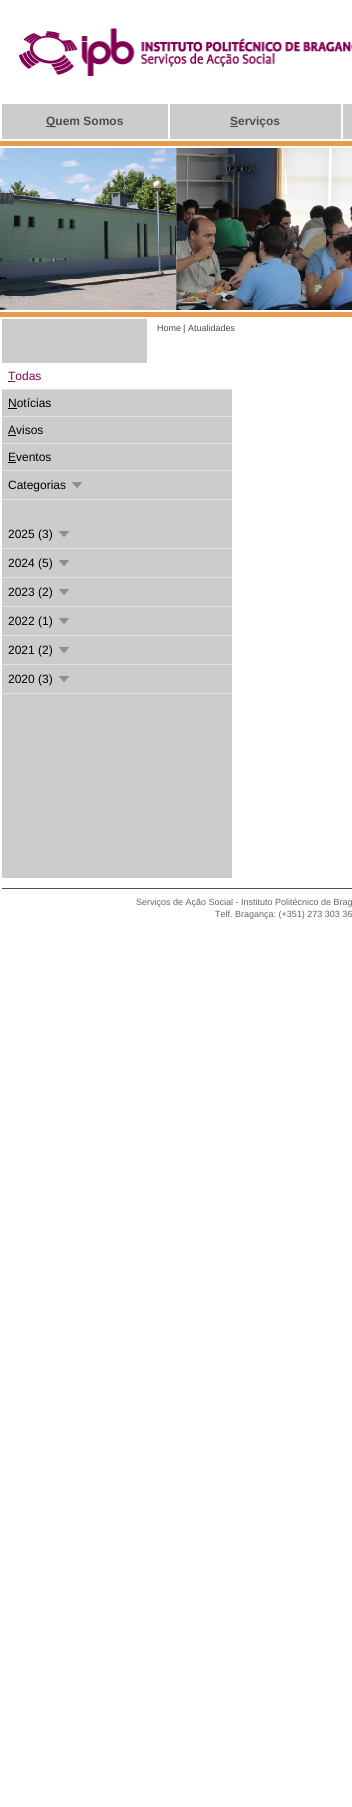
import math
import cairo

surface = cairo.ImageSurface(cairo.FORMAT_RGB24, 352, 1807)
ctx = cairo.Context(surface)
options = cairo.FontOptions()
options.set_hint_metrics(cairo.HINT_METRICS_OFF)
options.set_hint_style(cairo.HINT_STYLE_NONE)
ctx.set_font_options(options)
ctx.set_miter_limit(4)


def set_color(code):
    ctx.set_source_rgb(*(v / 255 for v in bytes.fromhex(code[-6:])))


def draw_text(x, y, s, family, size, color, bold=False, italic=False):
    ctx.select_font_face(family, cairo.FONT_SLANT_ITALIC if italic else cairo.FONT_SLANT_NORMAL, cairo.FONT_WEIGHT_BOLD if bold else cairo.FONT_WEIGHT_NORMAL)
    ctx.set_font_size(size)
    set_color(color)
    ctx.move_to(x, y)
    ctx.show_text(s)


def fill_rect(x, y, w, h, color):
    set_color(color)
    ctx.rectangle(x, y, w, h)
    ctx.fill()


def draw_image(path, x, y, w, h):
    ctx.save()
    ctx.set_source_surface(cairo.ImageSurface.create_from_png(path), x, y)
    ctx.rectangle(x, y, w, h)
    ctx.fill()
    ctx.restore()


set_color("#ffffff")
ctx.paint()
draw_image("assets/img1.png", 19, 28, 333, 48)
fill_rect(2, 104, 166, 35, "#cccccc")
fill_rect(46, 126, 10, 1, "#4d4d4d")
draw_text(46, 125, "Quem Somos", "Liberation Sans", 12, "#4d4d4d", bold=True)
fill_rect(170, 104, 171, 35, "#cccccc")
fill_rect(230, 126, 8, 1, "#4d4d4d")
draw_text(230, 125, "Serviços", "Liberation Sans", 12, "#4d4d4d", bold=True)
fill_rect(343, 104, 9, 35, "#cccccc")
fill_rect(0, 141, 352, 5, "#e99a4e")
draw_image("assets/img2.png", 0, 148, 352, 162)
fill_rect(0, 312, 352, 5, "#e99a4e")
fill_rect(2, 319, 145, 44, "#cccccc")
draw_text(157, 331, "Home", "Liberation Sans", 9, "#4d4d4d")
draw_text(183, 331, "|", "Liberation Sans", 9, "#333333")
draw_text(188, 331, "Atualidades", "Liberation Sans", 9, "#4d4d4d")
fill_rect(2, 390, 230, 488, "#cccccc")
fill_rect(2, 389, 230, 1, "#e2e2e2")
draw_text(8, 380, "Todas", "Liberation Sans", 12, "#87004e")
fill_rect(8, 381, 7, 1, "#87004e")
fill_rect(2, 416, 230, 1, "#e2e2e2")
draw_text(8, 407, "Notícias", "Liberation Sans", 12, "#000000")
fill_rect(8, 408, 9, 1, "#000000")
fill_rect(2, 443, 230, 1, "#e2e2e2")
draw_text(8, 434, "Avisos", "Liberation Sans", 12, "#000000")
fill_rect(8, 435, 8, 1, "#000000")
fill_rect(2, 470, 230, 1, "#e2e2e2")
draw_text(8, 461, "Eventos", "Liberation Sans", 12, "#000000")
fill_rect(8, 462, 8, 1, "#000000")
fill_rect(2, 499, 230, 1, "#e2e2e2")
draw_text(8, 489, "Categorias", "Liberation Sans", 12, "#000000")
draw_image("assets/img3.png", 72, 482, 10, 6)
fill_rect(2, 548, 230, 1, "#e2e2e2")
draw_text(8, 538, "2025 (3)", "Liberation Sans", 12, "#000000")
draw_image("assets/img3.png", 59, 531, 10, 6)
fill_rect(2, 577, 230, 1, "#e2e2e2")
draw_text(8, 567, "2024 (5)", "Liberation Sans", 12, "#000000")
draw_image("assets/img3.png", 59, 560, 10, 6)
fill_rect(2, 606, 230, 1, "#e2e2e2")
draw_text(8, 596, "2023 (2)", "Liberation Sans", 12, "#000000")
draw_image("assets/img3.png", 59, 589, 10, 6)
fill_rect(2, 635, 230, 1, "#e2e2e2")
draw_text(8, 625, "2022 (1)", "Liberation Sans", 12, "#000000")
draw_image("assets/img3.png", 59, 618, 10, 6)
fill_rect(2, 664, 230, 1, "#e2e2e2")
draw_text(8, 654, "2021 (2)", "Liberation Sans", 12, "#000000")
draw_image("assets/img3.png", 59, 647, 10, 6)
fill_rect(2, 693, 230, 1, "#e2e2e2")
draw_text(8, 683, "2020 (3)", "Liberation Sans", 12, "#000000")
draw_image("assets/img3.png", 59, 676, 10, 6)
fill_rect(2, 888, 350, 1, "#4d4d4d")
draw_text(136, 905, "Serviços de Ação Social - Instituto Politécnico de Brag", "Liberation Sans", 9, "#666666")
draw_text(215, 917, "Telf. Bragança: (+351) 273 303 36", "Liberation Sans", 9, "#666666")
surface.write_to_png("output.png")
